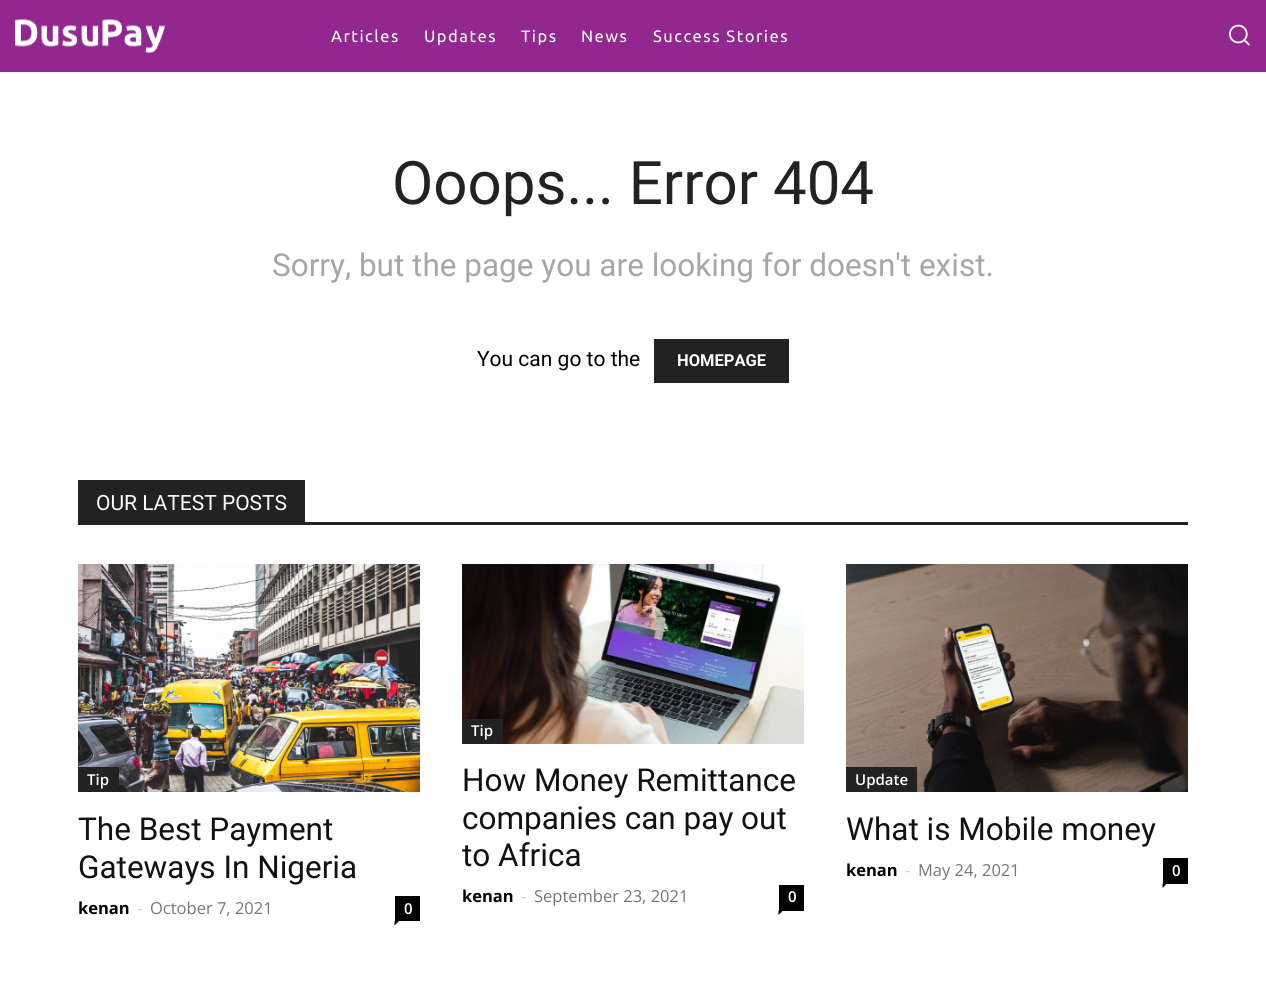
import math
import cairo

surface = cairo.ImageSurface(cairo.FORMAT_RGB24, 1266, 981)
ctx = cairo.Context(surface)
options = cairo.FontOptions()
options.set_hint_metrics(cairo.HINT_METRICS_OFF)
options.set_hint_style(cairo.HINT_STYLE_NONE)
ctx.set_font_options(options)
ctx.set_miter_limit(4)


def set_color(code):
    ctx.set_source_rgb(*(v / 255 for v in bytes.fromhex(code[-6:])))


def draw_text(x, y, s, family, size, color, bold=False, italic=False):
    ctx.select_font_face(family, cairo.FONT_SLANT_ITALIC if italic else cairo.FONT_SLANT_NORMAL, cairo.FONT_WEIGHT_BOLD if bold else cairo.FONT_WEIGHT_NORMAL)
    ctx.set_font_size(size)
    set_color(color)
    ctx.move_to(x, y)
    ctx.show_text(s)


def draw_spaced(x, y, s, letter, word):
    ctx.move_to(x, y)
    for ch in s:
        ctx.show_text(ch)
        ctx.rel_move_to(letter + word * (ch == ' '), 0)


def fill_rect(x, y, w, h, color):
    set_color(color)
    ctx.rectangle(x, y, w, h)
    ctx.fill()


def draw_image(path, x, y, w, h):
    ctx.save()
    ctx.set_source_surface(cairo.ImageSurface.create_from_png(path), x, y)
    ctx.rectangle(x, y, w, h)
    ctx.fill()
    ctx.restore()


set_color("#ffffff")
ctx.paint()
fill_rect(0, 0, 1266, 72, "#92278f")
draw_image("assets/img1.png", 15, 19, 150, 34)
ctx.select_font_face("Ubuntu")
ctx.set_font_size(16.5)
set_color("#ffffff")
draw_spaced(331, 42, "Articles", 1.5, 0)
draw_spaced(424, 42, "Updates", 1.5, 0)
draw_spaced(521, 42, "Tips", 1.5, 0)
draw_spaced(581, 42, "News", 1.5, 0)
draw_spaced(653, 42, "Success Stories", 1.5, 0)
draw_image("assets/img2.png", 1229, 24, 21, 22)
draw_text(392, 204, "Ooops... Error 404", "Roboto", 60, "#222222")
draw_text(272, 276, "Sorry, but the page you are looking for doesn't exist.", "Roboto", 31.5, "#a6a6a6")
draw_text(477, 366, "You can go to the", "Roboto", 21, "#000000")
fill_rect(654, 339, 135, 44, "#222222")
draw_text(677, 366, "HOMEPAGE", "Roboto", 16.5, "#ffffff", bold=True)
fill_rect(78, 522, 1110, 3, "#222222")
fill_rect(78, 480, 227, 42, "#222222")
draw_text(96, 510, "OUR LATEST POSTS", "Roboto", 21, "#ffffff")
draw_image("assets/img3.png", 78, 564, 342, 228)
fill_rect(78, 767, 41, 25, "#222222")
draw_text(87, 785, "Tip", "Open Sans SemiBold", 15, "#ffffff")
draw_text(78, 840, "The Best Payment", "Roboto", 31.5, "#111111")
draw_text(78, 878, "Gateways In Nigeria", "Roboto", 31.5, "#111111")
draw_text(78, 914, "kenan", "Open Sans", 16.5, "#000000", bold=True)
draw_text(137, 914, "-", "Open Sans", 16.5, "#cccccc")
draw_text(150, 914, "October 7, 2021", "Open Sans", 16.5, "#767676")
fill_rect(395, 896, 25, 25, "#000000")
draw_text(404, 914, "0", "Open Sans SemiBold", 15, "#ffffff")
set_color("#000000")
ctx.new_path()
ctx.move_to(394.5, 921)
ctx.line_to(399, 921)
ctx.line_to(394.5, 925.5)
ctx.close_path()
ctx.fill()
draw_image("assets/img4.png", 462, 564, 342, 180)
fill_rect(462, 719, 41, 25, "#222222")
draw_text(471, 736, "Tip", "Open Sans SemiBold", 15, "#ffffff")
draw_text(462, 791, "How Money Remittance", "Roboto", 31.5, "#111111")
draw_text(462, 829, "companies can pay out", "Roboto", 31.5, "#111111")
draw_text(462, 866, "to Africa", "Roboto", 31.5, "#111111")
draw_text(462, 902, "kenan", "Open Sans", 16.5, "#000000", bold=True)
draw_text(521, 902, "-", "Open Sans", 16.5, "#cccccc")
draw_text(534, 902, "September 23, 2021", "Open Sans", 16.5, "#767676")
fill_rect(779, 885, 25, 26, "#000000")
draw_text(788, 902, "0", "Open Sans SemiBold", 15, "#ffffff")
set_color("#000000")
ctx.new_path()
ctx.move_to(778.5, 910.5)
ctx.line_to(783, 910.5)
ctx.line_to(778.5, 915)
ctx.close_path()
ctx.fill()
draw_image("assets/img5.png", 846, 564, 342, 228)
fill_rect(846, 767, 71, 25, "#222222")
draw_text(855, 785, "Update", "Open Sans SemiBold", 15, "#ffffff")
draw_text(846, 840, "What is Mobile money", "Roboto", 31.5, "#111111")
draw_text(846, 876, "kenan", "Open Sans", 16.5, "#000000", bold=True)
draw_text(905, 876, "-", "Open Sans", 16.5, "#cccccc")
draw_text(918, 876, "May 24, 2021", "Open Sans", 16.5, "#767676")
fill_rect(1163, 858, 25, 26, "#000000")
draw_text(1172, 876, "0", "Open Sans SemiBold", 15, "#ffffff")
set_color("#000000")
ctx.new_path()
ctx.move_to(1162.5, 883.5)
ctx.line_to(1167, 883.5)
ctx.line_to(1162.5, 888)
ctx.close_path()
ctx.fill()
surface.write_to_png("output.png")
